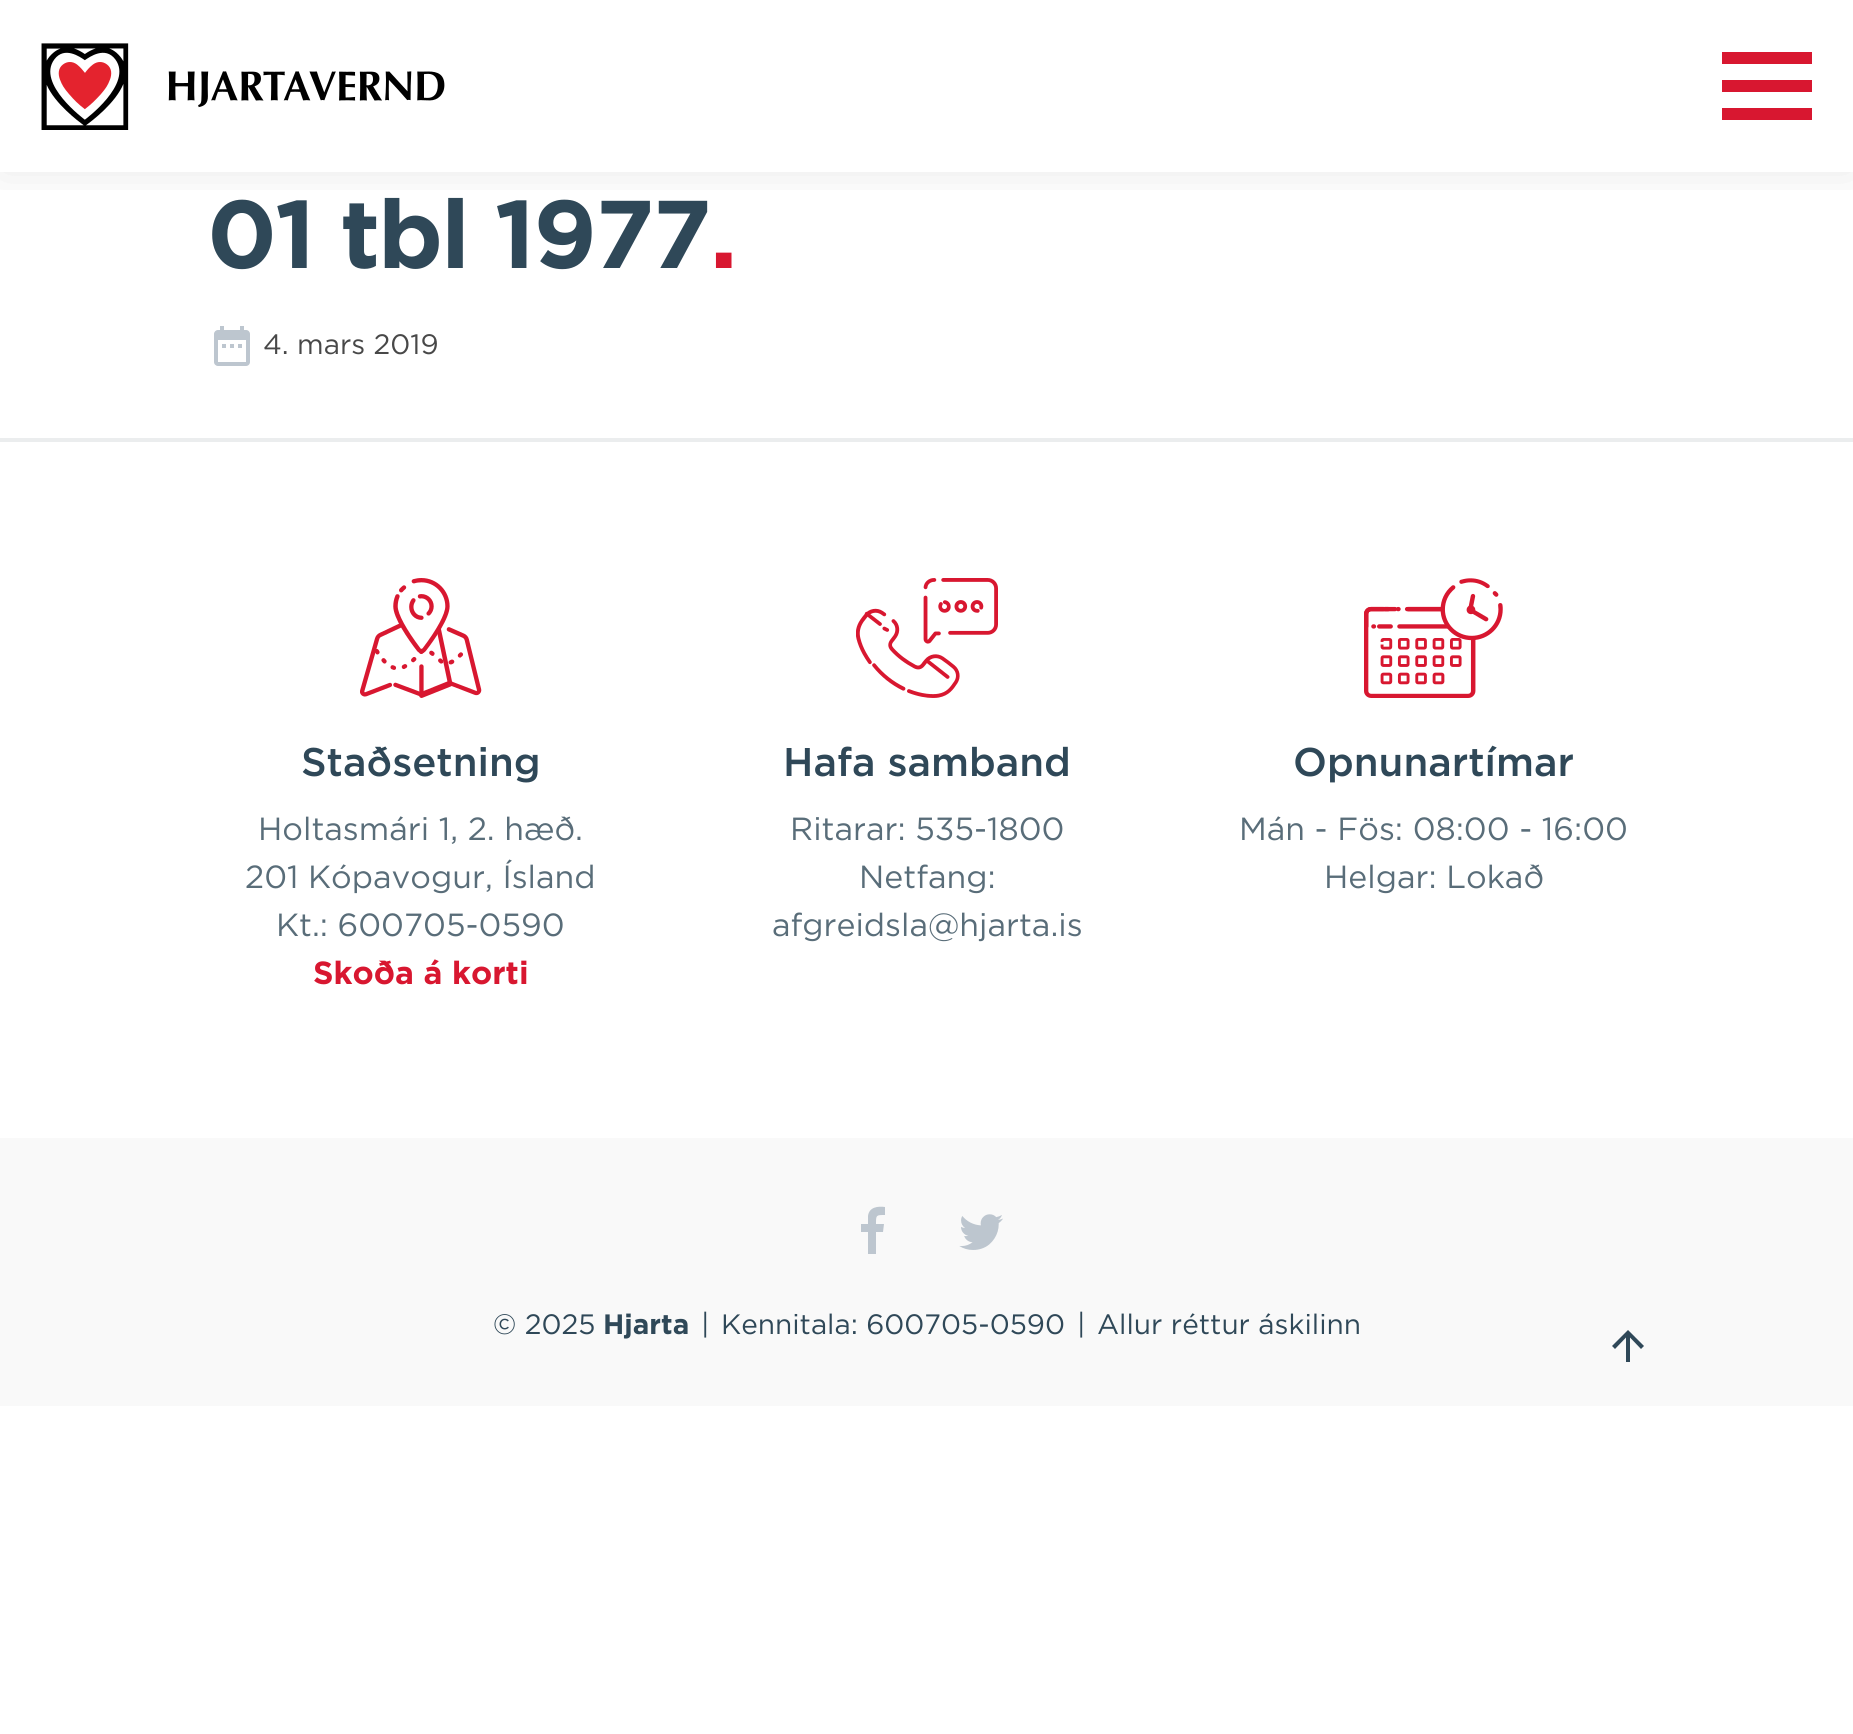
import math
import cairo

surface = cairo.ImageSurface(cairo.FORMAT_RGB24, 1853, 1734)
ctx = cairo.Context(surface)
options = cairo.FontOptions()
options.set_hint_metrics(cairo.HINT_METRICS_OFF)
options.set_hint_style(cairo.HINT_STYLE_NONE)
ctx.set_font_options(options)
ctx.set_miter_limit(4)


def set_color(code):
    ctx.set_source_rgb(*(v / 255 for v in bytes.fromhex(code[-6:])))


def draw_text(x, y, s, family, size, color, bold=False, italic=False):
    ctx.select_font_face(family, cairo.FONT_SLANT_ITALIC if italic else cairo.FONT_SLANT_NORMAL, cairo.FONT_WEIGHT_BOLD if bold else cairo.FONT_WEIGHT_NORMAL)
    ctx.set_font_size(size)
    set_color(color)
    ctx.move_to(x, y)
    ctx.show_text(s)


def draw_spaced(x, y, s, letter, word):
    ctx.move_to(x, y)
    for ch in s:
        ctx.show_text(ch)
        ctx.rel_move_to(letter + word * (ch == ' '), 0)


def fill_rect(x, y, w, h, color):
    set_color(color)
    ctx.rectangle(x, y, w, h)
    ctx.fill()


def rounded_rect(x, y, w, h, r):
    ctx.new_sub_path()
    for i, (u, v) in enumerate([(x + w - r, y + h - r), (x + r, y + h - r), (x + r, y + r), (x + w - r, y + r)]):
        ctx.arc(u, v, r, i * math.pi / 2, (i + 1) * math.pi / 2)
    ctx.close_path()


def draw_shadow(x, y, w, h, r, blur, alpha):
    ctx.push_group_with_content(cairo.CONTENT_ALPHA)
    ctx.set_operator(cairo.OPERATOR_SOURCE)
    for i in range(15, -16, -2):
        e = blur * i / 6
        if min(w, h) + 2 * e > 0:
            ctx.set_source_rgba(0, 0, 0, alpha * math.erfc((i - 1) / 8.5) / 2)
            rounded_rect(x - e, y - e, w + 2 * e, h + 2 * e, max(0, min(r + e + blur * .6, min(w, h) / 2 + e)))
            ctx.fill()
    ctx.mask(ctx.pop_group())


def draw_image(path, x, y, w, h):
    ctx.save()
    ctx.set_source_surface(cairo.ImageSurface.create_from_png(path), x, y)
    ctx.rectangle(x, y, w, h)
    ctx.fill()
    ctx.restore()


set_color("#ffffff")
ctx.paint()
ctx.save()
ctx.rectangle(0, 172, 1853, 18)
ctx.clip()
set_color("#000000")
draw_shadow(0, 0, 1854, 172, 0, 24, 0.09)
ctx.restore()
draw_image("assets/img1.png", 41, 43, 404, 87)
fill_rect(1722, 52, 90, 12, "#d81730")
fill_rect(1722, 80, 90, 12, "#d81730")
fill_rect(1722, 108, 90, 12, "#d81730")
ctx.select_font_face("Gotham", cairo.FONT_SLANT_NORMAL, cairo.FONT_WEIGHT_BOLD)
ctx.set_font_size(96)
set_color("#2f4858")
draw_spaced(207, 268, "01 tbl 1977", -2, 0)
set_color("#d81730")
draw_spaced(710, 268, ".", -2, 0)
draw_image("assets/img2.png", 214, 326, 36, 40)
draw_text(263, 354, "4. mars 2019", "Gotham", 28, "#484848")
fill_rect(0, 438, 1853, 4, "#ebedee")
draw_image("assets/img3.png", 360, 578, 122, 120)
draw_text(301, 776, "Staðsetning", "Gotham Medium", 40, "#2f4858")
draw_text(258, 840, "Holtasmári 1, 2. hæð.", "Gotham", 32, "#596d79")
draw_text(245, 888, "201 Kópavogur, Ísland", "Gotham", 32, "#596d79")
draw_text(276, 936, "Kt.: 600705-0590", "Gotham", 32, "#596d79")
draw_text(313, 984, "Skoða á korti", "Gotham", 32, "#d81730", bold=True)
draw_image("assets/img4.png", 856, 578, 142, 120)
draw_text(783, 776, "Hafa samband", "Gotham Medium", 40, "#2f4858")
draw_text(790, 840, "Ritarar: 535-1800", "Gotham", 32, "#596d79")
draw_text(859, 888, "Netfang:", "Gotham", 32, "#596d79")
draw_text(772, 936, "afgreidsla@hjarta.is", "Gotham", 32, "#596d79")
draw_image("assets/img5.png", 1364, 578, 139, 120)
draw_text(1293, 776, "Opnunartímar", "Gotham Medium", 40, "#2f4858")
draw_text(1239, 840, "Mán - Fös: 08:00 - 16:00", "Gotham", 32, "#596d79")
draw_text(1324, 888, "Helgar: Lokað", "Gotham", 32, "#596d79")
fill_rect(0, 1138, 1853, 268, "#f9f9f9")
set_color("#bdc6cf")
ctx.new_path()
ctx.move_to(885, 1207)
ctx.line_to(885, 1215)
ctx.curve_to(876, 1215, 876, 1215, 876, 1224)
ctx.line_to(884, 1224)
ctx.line_to(883, 1232)
ctx.line_to(876, 1232)
ctx.line_to(876, 1254)
ctx.line_to(868, 1254)
ctx.line_to(868, 1232)
ctx.line_to(861, 1232)
ctx.line_to(861, 1224)
ctx.line_to(868, 1224)
ctx.line_to(868, 1216)
ctx.curve_to(869, 1207, 878, 1206, 885, 1207)
ctx.close_path()
ctx.fill()
draw_image("assets/img6.png", 959, 1214, 44, 36)
draw_text(493, 1334, "© 2025", "Gotham", 28, "#2f4858")
draw_text(603, 1334, "Hjarta", "Gotham", 28, "#2f4858", bold=True)
draw_text(701, 1334, "|", "Gotham", 28, "#2f4858")
draw_text(721, 1334, "Kennitala: 600705-0590", "Gotham", 28, "#2f4858")
draw_text(1077, 1334, "|", "Gotham", 28, "#2f4858")
draw_text(1097, 1334, "Allur réttur áskilinn", "Gotham", 28, "#2f4858")
ctx.new_path()
ctx.move_to(1612, 1346)
ctx.line_to(1615, 1349)
ctx.line_to(1626, 1337.5)
ctx.line_to(1626, 1362)
ctx.line_to(1630, 1362)
ctx.line_to(1630, 1337.5)
ctx.line_to(1641, 1349)
ctx.line_to(1644, 1346)
ctx.line_to(1628, 1330)
ctx.close_path()
ctx.fill()
surface.write_to_png("output.png")
